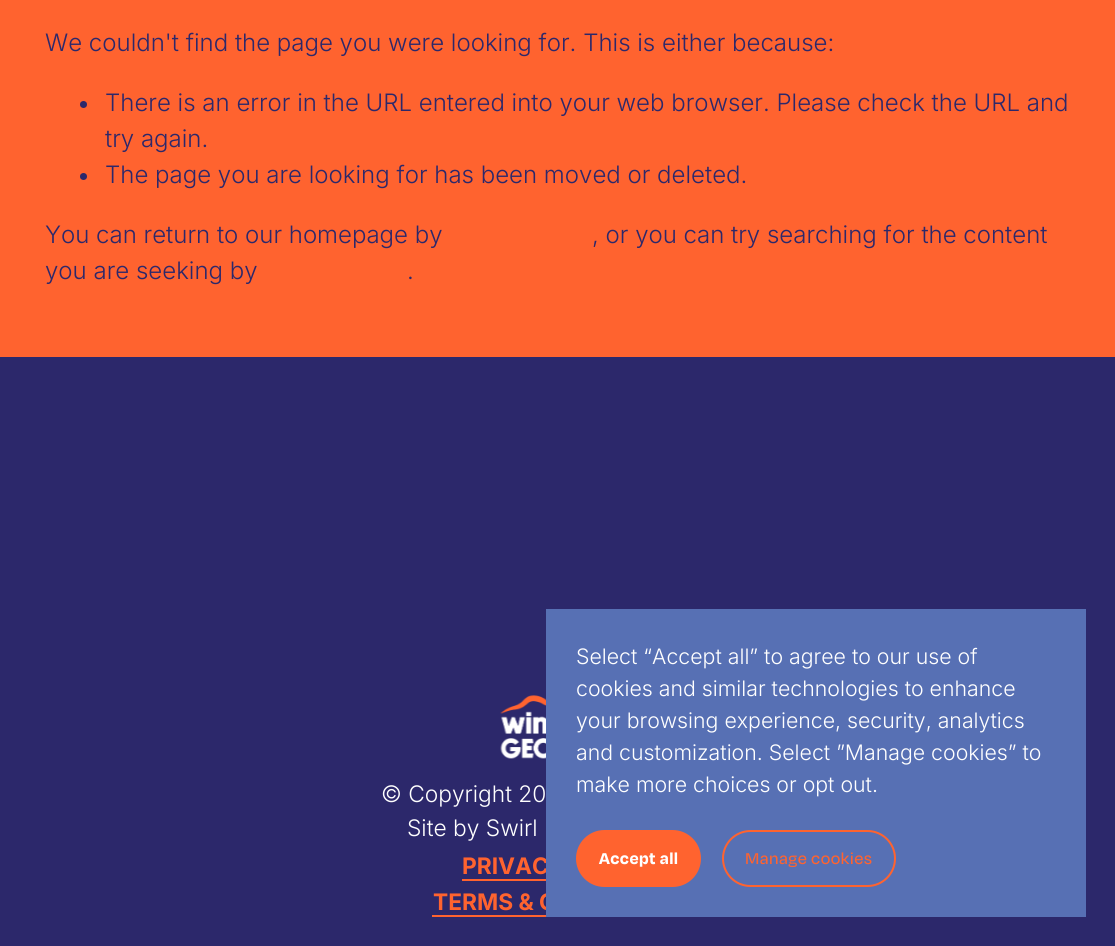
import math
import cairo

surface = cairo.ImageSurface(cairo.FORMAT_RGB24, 1115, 946)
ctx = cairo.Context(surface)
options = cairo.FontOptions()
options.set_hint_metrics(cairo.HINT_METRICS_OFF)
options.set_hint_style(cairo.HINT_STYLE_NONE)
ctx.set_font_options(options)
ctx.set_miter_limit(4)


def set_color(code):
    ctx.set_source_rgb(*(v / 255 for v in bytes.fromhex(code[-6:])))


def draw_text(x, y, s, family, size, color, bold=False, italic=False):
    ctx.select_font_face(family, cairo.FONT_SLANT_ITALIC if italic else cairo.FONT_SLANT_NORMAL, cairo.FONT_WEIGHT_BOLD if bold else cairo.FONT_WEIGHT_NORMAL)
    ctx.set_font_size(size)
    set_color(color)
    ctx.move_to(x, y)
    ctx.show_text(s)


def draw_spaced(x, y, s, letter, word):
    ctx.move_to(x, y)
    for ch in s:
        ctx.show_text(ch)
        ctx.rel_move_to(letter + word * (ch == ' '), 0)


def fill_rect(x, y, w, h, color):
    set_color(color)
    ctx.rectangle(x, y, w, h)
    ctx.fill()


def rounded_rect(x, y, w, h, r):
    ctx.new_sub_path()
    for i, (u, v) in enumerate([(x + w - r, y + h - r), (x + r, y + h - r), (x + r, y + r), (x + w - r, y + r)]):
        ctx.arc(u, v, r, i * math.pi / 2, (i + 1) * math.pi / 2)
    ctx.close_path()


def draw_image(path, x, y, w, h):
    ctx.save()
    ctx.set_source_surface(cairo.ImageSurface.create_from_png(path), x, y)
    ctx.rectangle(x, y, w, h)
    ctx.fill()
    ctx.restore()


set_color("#ff632f")
ctx.paint()
draw_text(45, 51, "We couldn't find the page you were looking for. This is either because:", "Inter Light", 24, "#2c286b")
ctx.new_path()
ctx.arc(83.5, 104.5, 3.5, 0, 2 * math.pi)
ctx.fill()
draw_text(105, 111, "There is an error in the URL entered into your web browser. Please check the URL and", "Inter Light", 24, "#2c286b")
draw_text(105, 147, "try again.", "Inter Light", 24, "#2c286b")
ctx.new_path()
ctx.arc(83.5, 176.5, 3.5, 0, 2 * math.pi)
ctx.fill()
draw_text(105, 183, "The page you are looking for has been moved or deleted.", "Inter Light", 24, "#2c286b")
draw_text(45, 243, "You can return to our homepage by", "Inter Light", 24, "#2c286b")
draw_text(592, 243, ", or you can try searching for the content", "Inter Light", 24, "#2c286b")
draw_text(45, 279, "you are seeking by", "Inter Light", 24, "#2c286b")
draw_text(407, 279, ".", "Inter Light", 24, "#2c286b")
fill_rect(0, 357, 1115, 589, "#2c286b")
draw_image("assets/img1.png", 500, 695, 46, 64)
draw_text(381, 802, "© Copyright 20", "Inter Light", 22.75, "#ffffff")
draw_text(407, 836, "Site by Swirl", "Inter Light", 22.75, "#ffffff")
draw_text(462, 874, "PRIVAC", "Inter", 22.75, "#ff632f", bold=True)
fill_rect(462, 879, 84, 2, "#ff632f")
draw_text(433, 910, "TERMS & C", "Inter", 22.75, "#ff632f", bold=True)
fill_rect(432, 915, 114, 2, "#ff632f")
fill_rect(546, 609, 540, 308, "#5770b4")
draw_text(576, 664, "Select “Accept all” to agree to our use of", "Inter Light", 21.3, "#ffffff")
draw_text(576, 696, "cookies and similar technologies to enhance", "Inter Light", 21.3, "#ffffff")
draw_text(576, 728, "your browsing experience, security, analytics", "Inter Light", 21.3, "#ffffff")
draw_text(576, 760, "and customization. Select ”Manage cookies” to", "Inter Light", 21.3, "#ffffff")
draw_text(576, 792, "make more choices or opt out.", "Inter Light", 21.3, "#ffffff")
set_color("#ff632f")
rounded_rect(576, 830, 125, 57, 28.5)
ctx.fill()
ctx.select_font_face("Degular", cairo.FONT_SLANT_NORMAL, cairo.FONT_WEIGHT_BOLD)
ctx.set_font_size(18)
set_color("#ffffff")
draw_spaced(599, 864, "Accept all", 0.4, 0)
rounded_rect(723, 831, 172, 55, 27.5)
set_color("#ff632f")
ctx.stroke()
ctx.select_font_face("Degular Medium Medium")
draw_spaced(745, 864, "Manage cookies", 0.4, 0)
surface.write_to_png("output.png")
